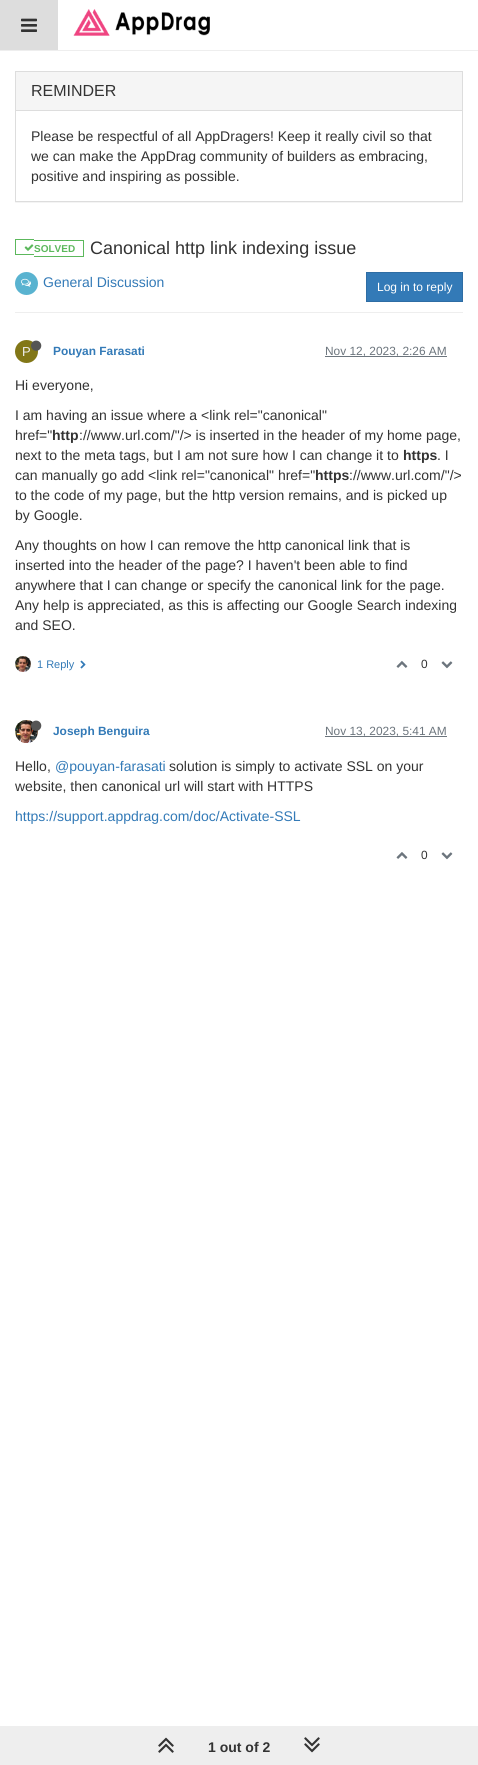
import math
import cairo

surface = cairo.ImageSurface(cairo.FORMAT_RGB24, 478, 1765)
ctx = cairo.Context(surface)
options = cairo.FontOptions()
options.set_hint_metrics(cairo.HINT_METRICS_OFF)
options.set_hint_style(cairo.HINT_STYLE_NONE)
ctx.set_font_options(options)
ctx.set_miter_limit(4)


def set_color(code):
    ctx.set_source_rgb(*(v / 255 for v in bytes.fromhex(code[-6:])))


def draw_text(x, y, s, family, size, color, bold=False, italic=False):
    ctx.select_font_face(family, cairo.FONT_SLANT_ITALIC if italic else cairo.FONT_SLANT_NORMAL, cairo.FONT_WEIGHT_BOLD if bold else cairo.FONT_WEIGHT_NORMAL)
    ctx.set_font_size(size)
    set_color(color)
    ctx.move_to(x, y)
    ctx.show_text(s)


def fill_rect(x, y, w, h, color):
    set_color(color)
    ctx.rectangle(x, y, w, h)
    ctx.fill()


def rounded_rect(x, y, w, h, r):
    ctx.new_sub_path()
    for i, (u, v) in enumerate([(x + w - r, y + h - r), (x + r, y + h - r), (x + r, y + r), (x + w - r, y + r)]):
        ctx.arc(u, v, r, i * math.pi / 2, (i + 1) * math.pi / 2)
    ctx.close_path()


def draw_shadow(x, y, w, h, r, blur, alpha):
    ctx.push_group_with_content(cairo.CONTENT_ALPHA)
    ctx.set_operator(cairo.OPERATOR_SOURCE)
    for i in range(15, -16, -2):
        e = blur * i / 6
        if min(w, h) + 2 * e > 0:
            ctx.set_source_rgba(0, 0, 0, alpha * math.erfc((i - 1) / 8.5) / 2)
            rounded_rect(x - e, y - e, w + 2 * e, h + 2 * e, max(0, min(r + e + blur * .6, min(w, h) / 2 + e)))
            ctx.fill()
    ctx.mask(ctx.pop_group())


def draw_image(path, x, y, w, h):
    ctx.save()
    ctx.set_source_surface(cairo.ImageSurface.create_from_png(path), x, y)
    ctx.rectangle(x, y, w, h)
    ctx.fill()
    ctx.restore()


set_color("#ffffff")
ctx.paint()
fill_rect(0, 50, 478, 1, "#eeeeee")
fill_rect(0, 0, 58, 50, "#dddddd")
draw_image("assets/img1.png", 21, 18, 16, 14)
draw_image("assets/img2.png", 73, 9, 137, 27)
ctx.save()
ctx.rectangle(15, 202, 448, 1)
ctx.clip()
set_color("#000000")
draw_shadow(15, 72, 448, 131, 0, 0.5, 0.05)
ctx.restore()
ctx.rectangle(15.5, 71.5, 447, 130)
ctx.set_line_width(1)
ctx.stroke()
fill_rect(16, 72, 446, 38, "#f5f5f5")
fill_rect(16, 110, 446, 1, "#dddddd")
draw_text(31, 96, "REMINDER", "Liberation Sans", 16, "#333333")
draw_text(31, 141, "Please be respectful of all AppDragers! Keep it really civil so that", "Liberation Sans", 14, "#333333")
draw_text(31, 161, "we can make the AppDrag community of builders as embracing,", "Liberation Sans", 14, "#333333")
draw_text(31, 181, "positive and inspiring as possible.", "Liberation Sans", 14, "#333333")
fill_rect(15, 239, 19, 1, "#5cb85c")
fill_rect(15, 254, 19, 1, "#5cb85c")
fill_rect(15, 239, 1, 16, "#5cb85c")
fill_rect(34, 240, 50, 1, "#5cb85c")
fill_rect(83, 240, 1, 17, "#5cb85c")
fill_rect(34, 256, 50, 1, "#5cb85c")
draw_image("assets/img3.png", 24, 244, 10, 7)
draw_text(34, 252, "SOLVED", "Liberation Sans", 10, "#5cb85c", bold=True)
draw_text(90, 254, "Canonical http link indexing issue", "Liberation Sans", 18, "#333333")
fill_rect(15, 312, 448, 1, "#eeeeee")
set_color("#59b3d0")
ctx.new_path()
ctx.arc(26.5, 283.5, 11.5, 0, 2 * math.pi)
ctx.fill()
draw_image("assets/img4.png", 21, 278, 10, 9)
draw_text(43, 287, "General Discussion", "Liberation Sans", 14, "#337ab7")
ctx.rectangle(366.5, 272.5, 96, 29)
ctx.fill_preserve()
set_color("#2e6da4")
ctx.stroke()
draw_text(377, 291, "Log in to reply", "Liberation Sans", 12, "#ffffff")
set_color("#827717")
ctx.new_path()
ctx.arc(26.5, 351.5, 11.5, 0, 2 * math.pi)
ctx.fill()
draw_text(22, 356, "P", "Liberation Sans", 13, "#eeeeee")
draw_image("assets/img5.png", 31, 340, 11, 11)
draw_text(53, 355, "Pouyan Farasati", "Liberation Sans", 11.9, "#337ab7", bold=True)
fill_rect(325, 356, 122, 1, "#6c757d")
draw_text(325, 355, "Nov 12, 2023, 2:26 AM", "Liberation Sans", 11.9, "#6c757d")
draw_text(15, 390, "Hi everyone,", "Liberation Sans", 14, "#333333")
draw_text(15, 420, "I am having an issue where a <link rel=\"canonical\"", "Liberation Sans", 14, "#333333")
draw_text(15, 440, "href=\"", "Liberation Sans", 14, "#333333")
draw_text(52, 440, "http", "Liberation Sans", 14, "#333333", bold=True)
draw_text(79, 440, "://www.url.com/\"/> is inserted in the header of my home page,", "Liberation Sans", 14, "#333333")
draw_text(15, 460, "next to the meta tags, but I am not sure how I can change it to", "Liberation Sans", 14, "#333333")
draw_text(403, 460, "https", "Liberation Sans", 14, "#333333", bold=True)
draw_text(437, 460, ". I", "Liberation Sans", 14, "#333333")
draw_text(15, 480, "can manually go add <link rel=\"canonical\" href=\"", "Liberation Sans", 14, "#333333")
draw_text(315, 480, "https", "Liberation Sans", 14, "#333333", bold=True)
draw_text(349, 480, "://www.url.com/\"/>", "Liberation Sans", 14, "#333333")
draw_text(15, 500, "to the code of my page, but the http version remains, and is picked up", "Liberation Sans", 14, "#333333")
draw_text(15, 520, "by Google.", "Liberation Sans", 14, "#333333")
draw_text(15, 550, "Any thoughts on how I can remove the http canonical link that is", "Liberation Sans", 14, "#333333")
draw_text(15, 570, "inserted into the header of the page? I haven't been able to find", "Liberation Sans", 14, "#333333")
draw_text(15, 590, "anywhere that I can change or specify the canonical link for the page.", "Liberation Sans", 14, "#333333")
draw_text(15, 610, "Any help is appreciated, as this is affecting our Google Search indexing", "Liberation Sans", 14, "#333333")
draw_text(15, 630, "and SEO.", "Liberation Sans", 14, "#333333")
draw_image("assets/img6.png", 15, 656, 16, 16)
draw_text(37, 668, "1 Reply", "Liberation Sans", 11, "#337ab7")
draw_image("assets/img7.png", 80, 660, 6, 9)
draw_image("assets/img8.png", 396, 661, 12, 7)
draw_text(421, 668, "0", "Liberation Sans", 11.9, "#333333")
draw_image("assets/img9.png", 441, 661, 12, 8)
draw_image("assets/img10.png", 15, 720, 23, 23)
draw_image("assets/img11.png", 31, 720, 11, 11)
draw_text(53, 735, "Joseph Benguira", "Liberation Sans", 11.9, "#337ab7", bold=True)
fill_rect(325, 736, 122, 1, "#6c757d")
draw_text(325, 735, "Nov 13, 2023, 5:41 AM", "Liberation Sans", 11.9, "#6c757d")
draw_text(15, 771, "Hello,", "Liberation Sans", 14, "#333333")
draw_text(55, 771, "@pouyan-farasati", "Liberation Sans", 14, "#337ab7")
draw_text(169, 771, "solution is simply to activate SSL on your", "Liberation Sans", 14, "#333333")
draw_text(15, 791, "website, then canonical url will start with HTTPS", "Liberation Sans", 14, "#333333")
draw_text(15, 821, "https://support.appdrag.com/doc/Activate-SSL", "Liberation Sans", 14, "#337ab7")
draw_image("assets/img8.png", 396, 852, 12, 7)
draw_text(421, 859, "0", "Liberation Sans", 11.9, "#333333")
draw_image("assets/img9.png", 441, 852, 12, 8)
fill_rect(0, 1726, 478, 39, "#eeeeee")
draw_image("assets/img12.png", 158, 1737, 16, 16)
draw_text(208, 1752, "1 out of 2", "Liberation Sans", 14, "#333333", bold=True)
draw_image("assets/img13.png", 304, 1737, 16, 16)
surface.write_to_png("output.png")
